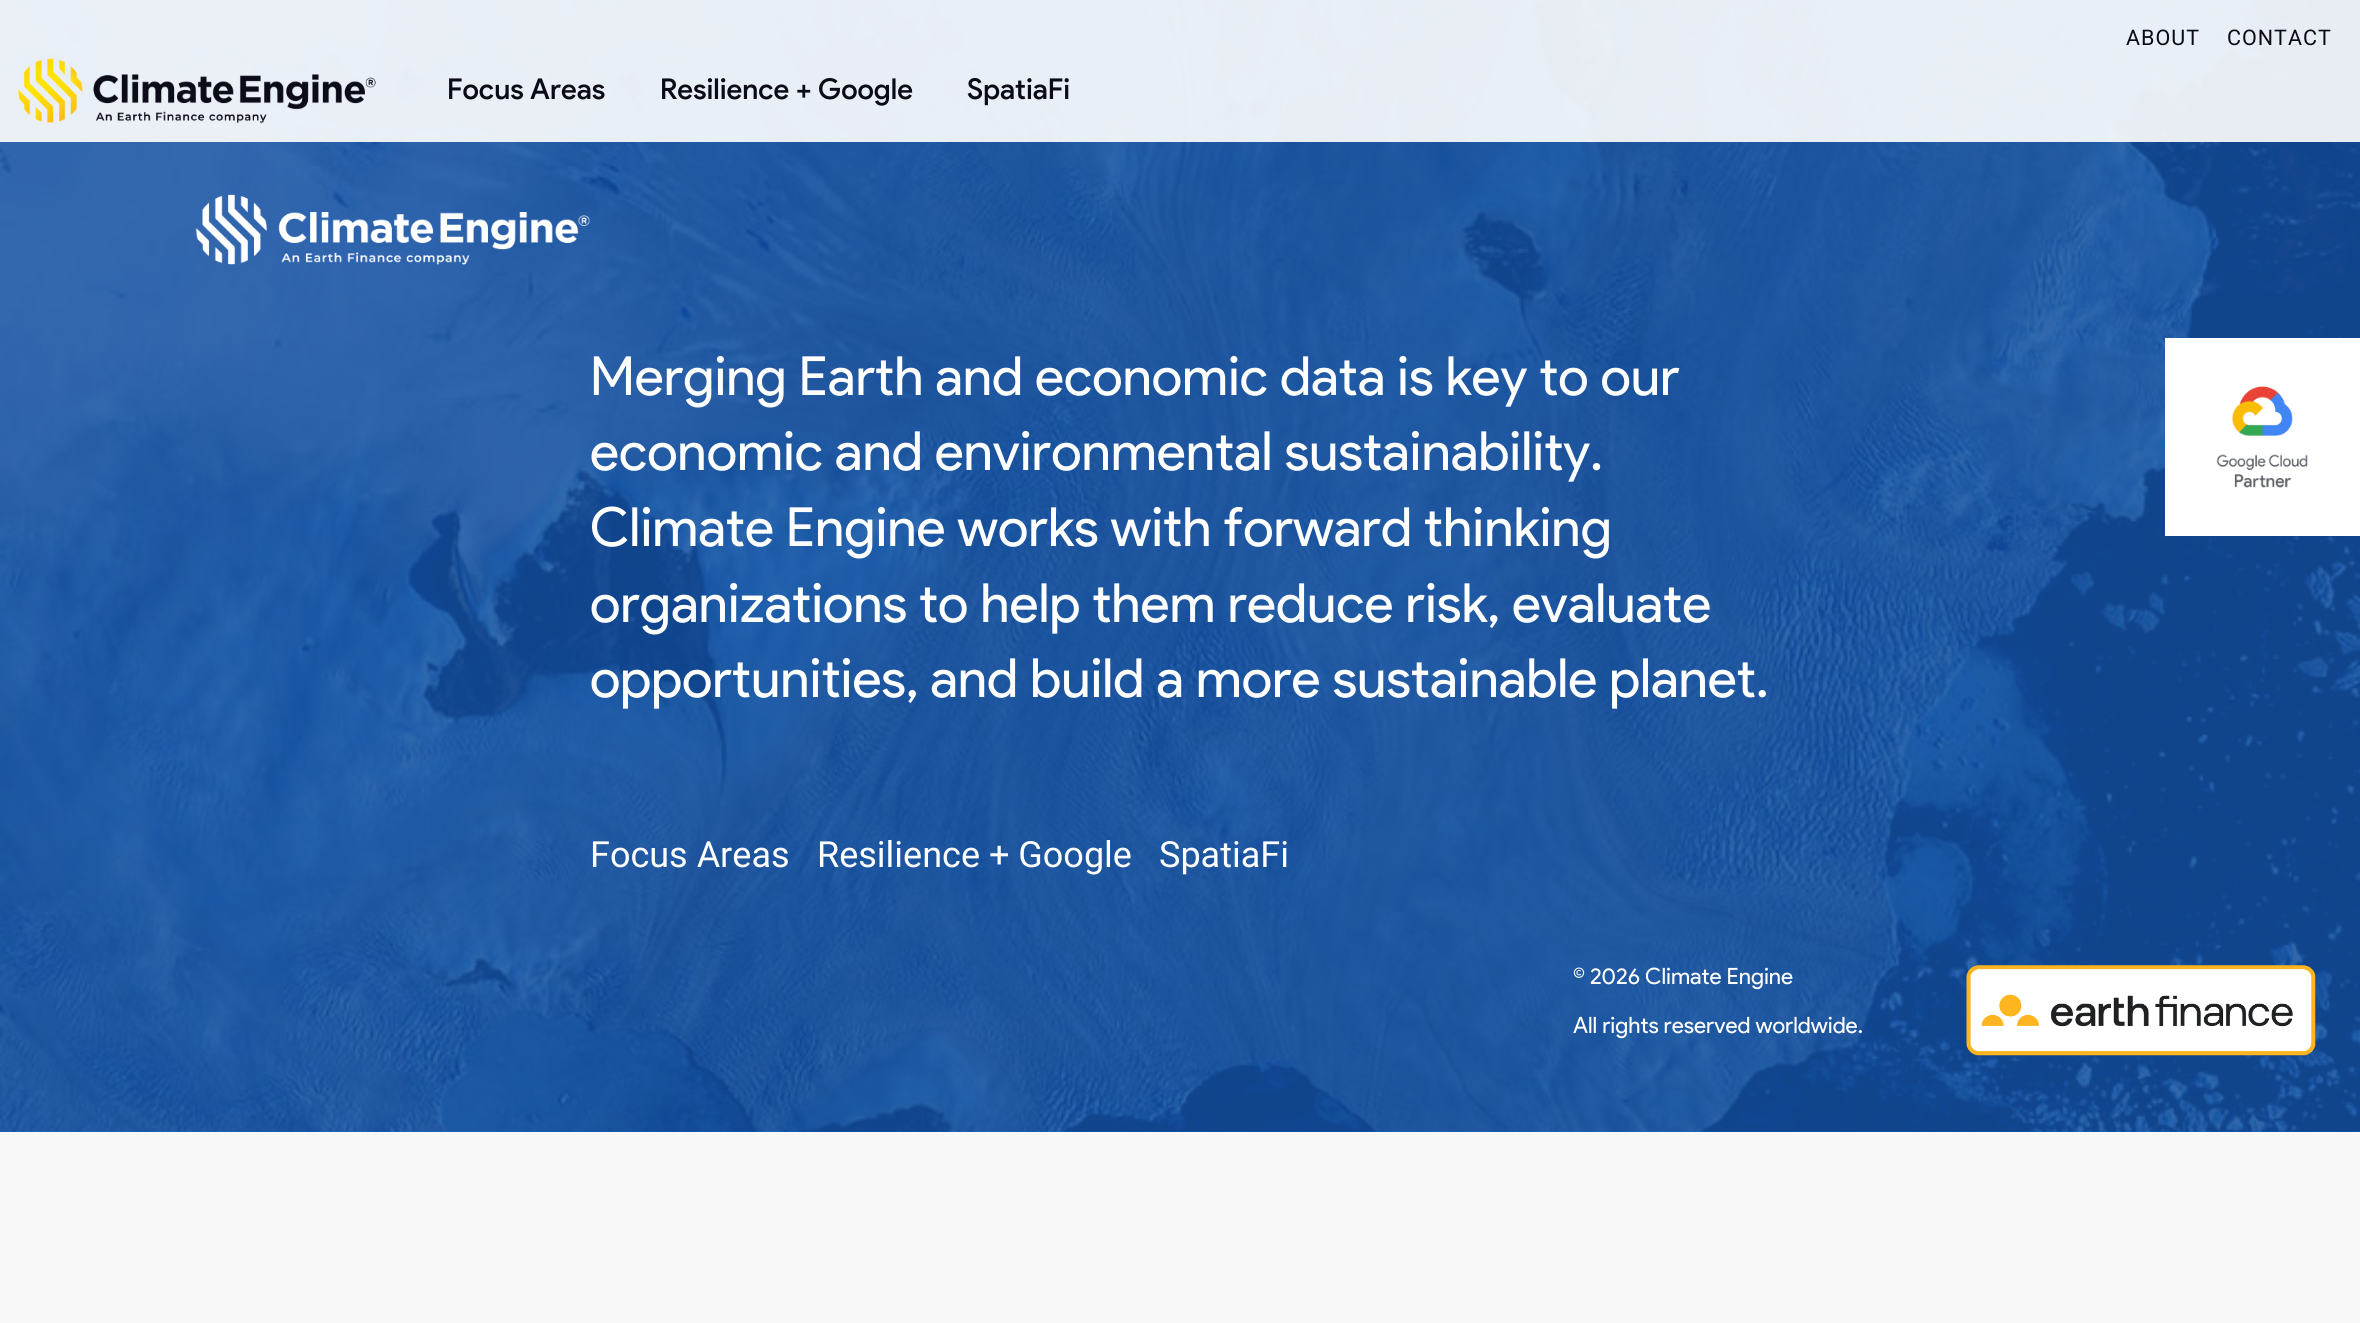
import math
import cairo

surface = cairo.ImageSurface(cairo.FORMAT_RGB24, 2360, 1323)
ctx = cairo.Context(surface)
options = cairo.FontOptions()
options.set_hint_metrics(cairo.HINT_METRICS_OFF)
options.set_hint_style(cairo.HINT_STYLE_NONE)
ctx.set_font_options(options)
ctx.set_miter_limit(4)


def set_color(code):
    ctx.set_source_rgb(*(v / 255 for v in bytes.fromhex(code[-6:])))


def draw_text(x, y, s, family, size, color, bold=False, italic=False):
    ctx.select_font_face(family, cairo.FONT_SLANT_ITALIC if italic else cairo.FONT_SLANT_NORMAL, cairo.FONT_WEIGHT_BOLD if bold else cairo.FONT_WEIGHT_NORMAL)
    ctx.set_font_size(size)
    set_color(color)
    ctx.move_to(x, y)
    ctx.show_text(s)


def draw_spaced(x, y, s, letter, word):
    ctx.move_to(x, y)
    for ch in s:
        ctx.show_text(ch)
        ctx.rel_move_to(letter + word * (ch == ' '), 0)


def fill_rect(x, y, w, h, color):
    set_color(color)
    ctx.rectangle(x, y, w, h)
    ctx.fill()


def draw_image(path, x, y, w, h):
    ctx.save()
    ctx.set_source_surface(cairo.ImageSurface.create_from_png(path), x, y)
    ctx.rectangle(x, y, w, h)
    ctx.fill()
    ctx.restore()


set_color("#f8f8f8")
ctx.paint()
fill_rect(0, 0, 2360, 1132, "#1a73e8")
draw_image("assets/img2.png", 0, 0, 2360, 1132)
ctx.set_source_rgba(1, 1, 1, 0.9)
ctx.rectangle(0, 0, 2360, 142)
ctx.fill()
draw_image("assets/img1.png", 18, 58, 358, 66)
ctx.select_font_face("Roboto")
ctx.set_font_size(21.5)
set_color("#0b0a17")
draw_spaced(2126, 45, "ABOUT", 1, 0)
draw_spaced(2227, 45, "CONTACT", 1, 0)
draw_text(447, 99, "Focus Areas", "Product Sans Medium", 28.75, "#0b0a17")
draw_text(660, 99, "Resilience + Google", "Product Sans Medium", 28.75, "#0b0a17")
draw_text(967, 99, "SpatiaFi", "Product Sans Medium", 28.75, "#0b0a17")
draw_image("assets/img3.png", 195, 194, 395, 71)
draw_text(590, 395, "Merging Earth and economic data is key to our", "Product Sans", 54, "#ffffff")
draw_text(590, 470, "economic and environmental sustainability.", "Product Sans", 54, "#ffffff")
draw_text(590, 546, "Climate Engine works with forward thinking", "Product Sans", 54, "#ffffff")
draw_text(590, 622, "organizations to help them reduce risk, evaluate", "Product Sans", 54, "#ffffff")
draw_text(590, 697, "opportunities, and build a more sustainable planet.", "Product Sans", 54, "#ffffff")
fill_rect(2165, 338, 195, 198, "#ffffff")
draw_image("assets/img4.png", 2216, 386, 92, 102)
draw_text(590, 867, "Focus Areas", "Roboto", 36, "#ffffff")
draw_text(817, 867, "Resilience + Google", "Roboto", 36, "#ffffff")
draw_text(1159, 867, "SpatiaFi", "Roboto", 36, "#ffffff")
draw_text(1573, 984, "© 2026 Climate Engine", "Product Sans", 22.5, "#ffffff")
draw_text(1573, 1033, "All rights reserved worldwide.", "Product Sans", 22.5, "#ffffff")
draw_image("assets/img5.png", 1966, 965, 350, 91)
surface.write_to_png("output.png")
